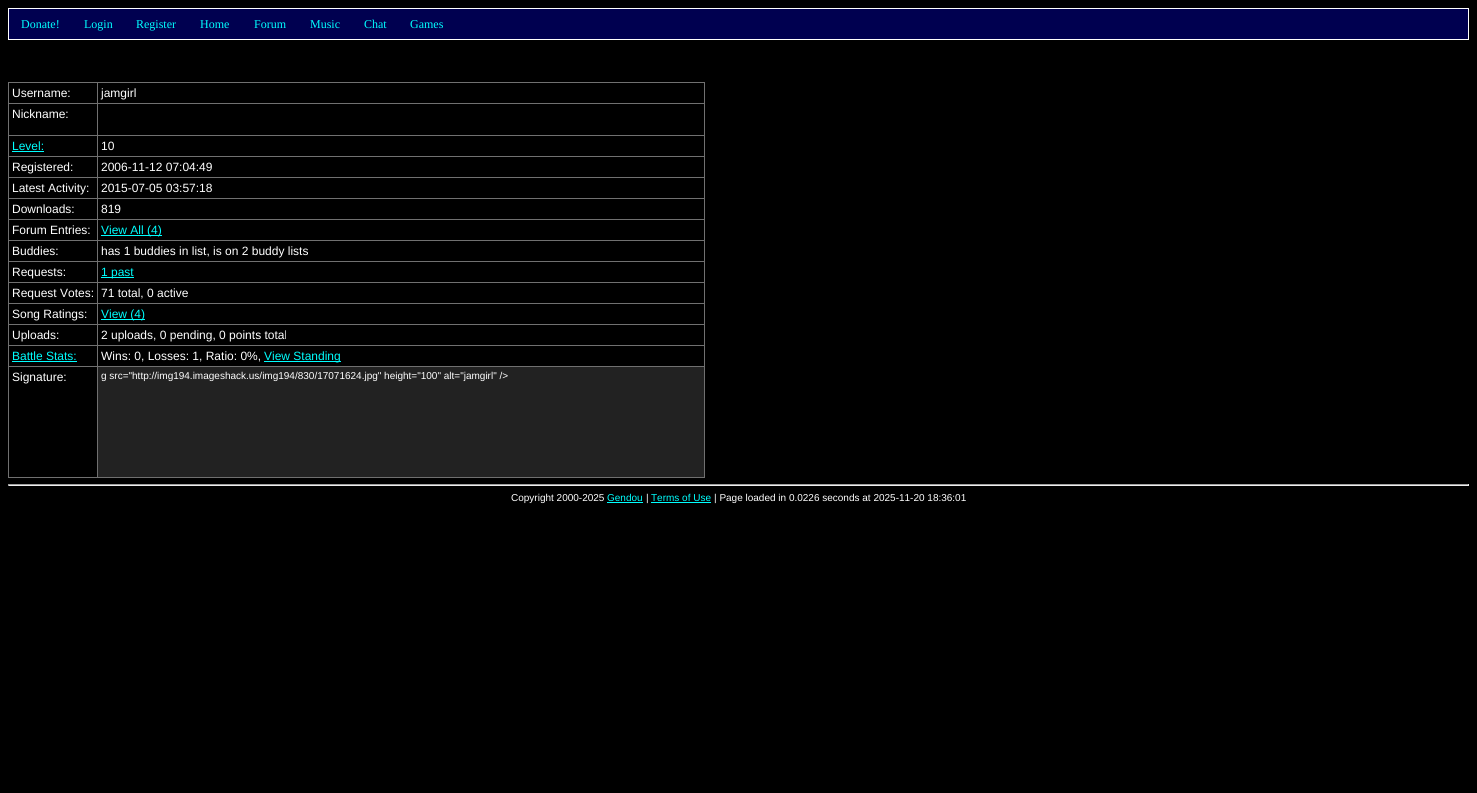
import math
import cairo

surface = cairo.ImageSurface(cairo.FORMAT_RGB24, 1477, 793)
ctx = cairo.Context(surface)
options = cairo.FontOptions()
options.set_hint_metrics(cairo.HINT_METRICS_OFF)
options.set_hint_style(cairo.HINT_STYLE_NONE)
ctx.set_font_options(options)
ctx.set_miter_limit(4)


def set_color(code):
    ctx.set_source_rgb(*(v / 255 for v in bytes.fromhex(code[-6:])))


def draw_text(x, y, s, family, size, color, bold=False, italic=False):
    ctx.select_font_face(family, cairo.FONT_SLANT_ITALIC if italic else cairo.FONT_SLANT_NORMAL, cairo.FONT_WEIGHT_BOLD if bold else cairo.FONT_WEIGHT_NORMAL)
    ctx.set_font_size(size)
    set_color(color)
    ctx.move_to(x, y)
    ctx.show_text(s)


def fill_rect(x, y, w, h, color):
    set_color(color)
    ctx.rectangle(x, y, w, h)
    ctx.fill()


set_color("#000000")
ctx.paint()
set_color("#000050")
ctx.rectangle(8.5, 8.5, 1460, 31)
ctx.fill_preserve()
set_color("#ffffff")
ctx.set_line_width(1)
ctx.stroke()
draw_text(21, 28, "Donate!", "Liberation Serif", 12, "#00ffff")
draw_text(84, 28, "Login", "Liberation Serif", 12, "#00ffff")
draw_text(136, 28, "Register", "Liberation Serif", 12, "#00ffff")
draw_text(200, 28, "Home", "Liberation Serif", 12, "#00ffff")
draw_text(254, 28, "Forum", "Liberation Serif", 12, "#00ffff")
draw_text(310, 28, "Music", "Liberation Serif", 12, "#00ffff")
draw_text(364, 28, "Chat", "Liberation Serif", 12, "#00ffff")
draw_text(410, 28, "Games", "Liberation Serif", 12, "#00ffff")
fill_rect(704, 82, 1, 396, "#707070")
fill_rect(8, 477, 697, 1, "#707070")
fill_rect(97, 82, 608, 1, "#707070")
fill_rect(97, 103, 608, 1, "#707070")
fill_rect(97, 135, 608, 1, "#707070")
fill_rect(97, 156, 608, 1, "#707070")
fill_rect(97, 177, 608, 1, "#707070")
fill_rect(97, 198, 608, 1, "#707070")
fill_rect(97, 219, 608, 1, "#707070")
fill_rect(97, 240, 608, 1, "#707070")
fill_rect(97, 261, 608, 1, "#707070")
fill_rect(97, 282, 608, 1, "#707070")
fill_rect(97, 303, 608, 1, "#707070")
fill_rect(97, 324, 608, 1, "#707070")
fill_rect(97, 345, 608, 1, "#707070")
fill_rect(97, 366, 608, 1, "#707070")
fill_rect(97, 366, 1, 112, "#707070")
fill_rect(8, 366, 90, 1, "#707070")
fill_rect(97, 345, 1, 22, "#707070")
fill_rect(8, 345, 90, 1, "#707070")
fill_rect(97, 324, 1, 22, "#707070")
fill_rect(8, 324, 90, 1, "#707070")
fill_rect(97, 303, 1, 22, "#707070")
fill_rect(8, 303, 90, 1, "#707070")
fill_rect(97, 282, 1, 22, "#707070")
fill_rect(8, 282, 90, 1, "#707070")
fill_rect(97, 261, 1, 22, "#707070")
fill_rect(8, 261, 90, 1, "#707070")
fill_rect(97, 240, 1, 22, "#707070")
fill_rect(8, 240, 90, 1, "#707070")
fill_rect(97, 219, 1, 22, "#707070")
fill_rect(8, 219, 90, 1, "#707070")
fill_rect(97, 198, 1, 22, "#707070")
fill_rect(8, 198, 90, 1, "#707070")
fill_rect(97, 177, 1, 22, "#707070")
fill_rect(8, 177, 90, 1, "#707070")
fill_rect(97, 156, 1, 22, "#707070")
fill_rect(8, 156, 90, 1, "#707070")
fill_rect(97, 135, 1, 22, "#707070")
fill_rect(8, 135, 90, 1, "#707070")
fill_rect(97, 103, 1, 33, "#707070")
fill_rect(8, 103, 90, 1, "#707070")
fill_rect(97, 82, 1, 22, "#707070")
fill_rect(8, 82, 90, 1, "#707070")
fill_rect(8, 366, 1, 112, "#707070")
fill_rect(8, 345, 1, 22, "#707070")
fill_rect(8, 324, 1, 22, "#707070")
fill_rect(8, 303, 1, 22, "#707070")
fill_rect(8, 282, 1, 22, "#707070")
fill_rect(8, 261, 1, 22, "#707070")
fill_rect(8, 240, 1, 22, "#707070")
fill_rect(8, 219, 1, 22, "#707070")
fill_rect(8, 198, 1, 22, "#707070")
fill_rect(8, 177, 1, 22, "#707070")
fill_rect(8, 156, 1, 22, "#707070")
fill_rect(8, 135, 1, 22, "#707070")
fill_rect(8, 103, 1, 33, "#707070")
fill_rect(8, 82, 1, 22, "#707070")
draw_text(12, 97, "Username:", "Liberation Sans", 12, "#ffffff")
draw_text(101, 97, "jamgirl", "Liberation Sans", 12, "#ffffff")
draw_text(12, 118, "Nickname:", "Liberation Sans", 12, "#ffffff")
draw_text(12, 150, "Level:", "Liberation Sans", 12, "#00ffff")
fill_rect(12, 151, 32, 1, "#00ffff")
draw_text(101, 150, "10", "Liberation Sans", 12, "#ffffff")
draw_text(12, 171, "Registered:", "Liberation Sans", 12, "#ffffff")
draw_text(101, 171, "2006-11-12 07:04:49", "Liberation Sans", 12, "#ffffff")
draw_text(12, 192, "Latest Activity:", "Liberation Sans", 12, "#ffffff")
draw_text(101, 192, "2015-07-05 03:57:18", "Liberation Sans", 12, "#ffffff")
draw_text(12, 213, "Downloads:", "Liberation Sans", 12, "#ffffff")
draw_text(101, 213, "819", "Liberation Sans", 12, "#ffffff")
draw_text(12, 234, "Forum Entries:", "Liberation Sans", 12, "#ffffff")
fill_rect(101, 235, 61, 1, "#00ffff")
draw_text(101, 234, "View All (4)", "Liberation Sans", 12, "#00ffff")
draw_text(12, 255, "Buddies:", "Liberation Sans", 12, "#ffffff")
draw_text(101, 255, "has 1 buddies in list, is on 2 buddy lists", "Liberation Sans", 12, "#ffffff")
draw_text(12, 276, "Requests:", "Liberation Sans", 12, "#ffffff")
fill_rect(101, 277, 33, 1, "#00ffff")
draw_text(101, 276, "1 past", "Liberation Sans", 12, "#00ffff")
draw_text(12, 297, "Request Votes:", "Liberation Sans", 12, "#ffffff")
draw_text(101, 297, "71 total, 0 active", "Liberation Sans", 12, "#ffffff")
draw_text(12, 318, "Song Ratings:", "Liberation Sans", 12, "#ffffff")
fill_rect(101, 319, 44, 1, "#00ffff")
draw_text(101, 318, "View (4)", "Liberation Sans", 12, "#00ffff")
draw_text(12, 339, "Uploads:", "Liberation Sans", 12, "#ffffff")
draw_text(101, 339, "2 uploads, 0 pending, 0 points total", "Liberation Sans", 12, "#ffffff")
draw_text(12, 360, "Battle Stats:", "Liberation Sans", 12, "#00ffff")
fill_rect(12, 361, 65, 1, "#00ffff")
draw_text(101, 360, "Wins: 0, Losses: 1, Ratio: 0%,", "Liberation Sans", 12, "#ffffff")
fill_rect(264, 361, 77, 1, "#00ffff")
draw_text(264, 360, "View Standing", "Liberation Sans", 12, "#00ffff")
draw_text(12, 381, "Signature:", "Liberation Sans", 12, "#ffffff")
fill_rect(98, 367, 606, 110, "#222222")
draw_text(101, 379, "g src=\"http://img194.imageshack.us/img194/830/17071624.jpg\" height=\"100\" alt=\"jamgirl\" />", "Liberation Sans", 10, "#ffffff")
fill_rect(8, 484, 1461, 1, "#9f9f9f")
fill_rect(1468, 484, 1, 2, "#eeeeee")
fill_rect(8, 485, 1461, 1, "#eeeeee")
fill_rect(8, 484, 1, 2, "#9f9f9f")
draw_text(511, 501, "Copyright 2000-2025", "Liberation Sans", 10, "#ffffff")
draw_text(607, 501, "Gendou", "Liberation Sans", 10, "#00ffff")
fill_rect(607, 502, 36, 1, "#00ffff")
draw_text(646, 501, "|", "Liberation Sans", 10, "#ffffff")
draw_text(651, 501, "Terms of Use", "Liberation Sans", 10, "#00ffff")
fill_rect(651, 502, 60, 1, "#00ffff")
draw_text(714, 501, "| Page loaded in 0.0226 seconds at 2025-11-20 18:36:01", "Liberation Sans", 10, "#ffffff")
surface.write_to_png("output.png")
